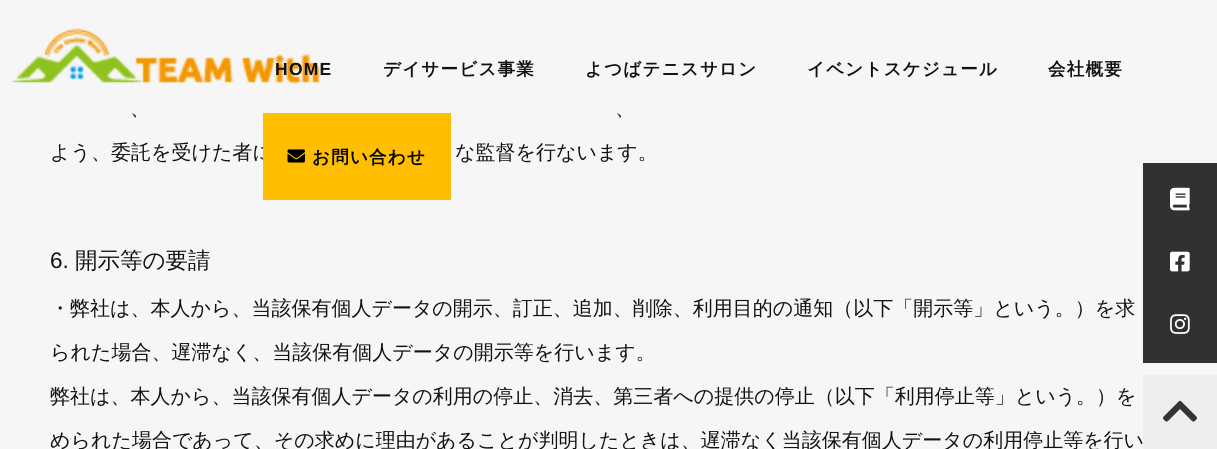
import math
import cairo

surface = cairo.ImageSurface(cairo.FORMAT_RGB24, 1217, 449)
ctx = cairo.Context(surface)
options = cairo.FontOptions()
options.set_hint_metrics(cairo.HINT_METRICS_OFF)
options.set_hint_style(cairo.HINT_STYLE_NONE)
ctx.set_font_options(options)
ctx.set_miter_limit(4)


def set_color(code):
    ctx.set_source_rgb(*(v / 255 for v in bytes.fromhex(code[-6:])))


def draw_text(x, y, s, family, size, color, bold=False, italic=False):
    ctx.select_font_face(family, cairo.FONT_SLANT_ITALIC if italic else cairo.FONT_SLANT_NORMAL, cairo.FONT_WEIGHT_BOLD if bold else cairo.FONT_WEIGHT_NORMAL)
    ctx.set_font_size(size)
    set_color(color)
    ctx.move_to(x, y)
    ctx.show_text(s)


def draw_spaced(x, y, s, letter, word):
    ctx.move_to(x, y)
    for ch in s:
        ctx.show_text(ch)
        ctx.rel_move_to(letter + word * (ch == ' '), 0)


def fill_rect(x, y, w, h, color):
    set_color(color)
    ctx.rectangle(x, y, w, h)
    ctx.fill()


def draw_image(path, x, y, w, h):
    ctx.save()
    ctx.set_source_surface(cairo.ImageSurface.create_from_png(path), x, y)
    ctx.rectangle(x, y, w, h)
    ctx.fill()
    ctx.restore()


set_color("#f6f6f6")
ctx.paint()
draw_image("assets/img1.png", 12, 28, 309, 56)
ctx.select_font_face("Liberation Sans", cairo.FONT_SLANT_NORMAL, cairo.FONT_WEIGHT_BOLD)
ctx.set_font_size(17.5)
set_color("#111111")
draw_spaced(275, 75, "HOME", 1.25, 0)
ctx.select_font_face("WenQuanYi Zen Hei", cairo.FONT_SLANT_NORMAL, cairo.FONT_WEIGHT_BOLD)
draw_spaced(383, 75, "デイサービス事業", 1.25, 0)
draw_spaced(585, 75, "よつばテニスサロン", 1.25, 0)
draw_spaced(807, 75, "イベントスケジュール", 1.25, 0)
draw_spaced(1048, 75, "会社概要", 1.25, 0)
draw_text(50, 159, "よう、委託を受けた者に", "WenQuanYi Zen Hei Medium", 20, "#111111")
fill_rect(263, 113, 188, 87, "#ffbf00")
draw_image("assets/img2.png", 287, 149, 18, 14)
ctx.select_font_face("WenQuanYi Zen Hei", cairo.FONT_SLANT_NORMAL, cairo.FONT_WEIGHT_BOLD)
ctx.set_font_size(17.5)
set_color("#000000")
draw_spaced(312, 163, "お問い合わせ", 1.25, 0)
ctx.set_source_rgba(0, 0, 0, 0.8)
ctx.rectangle(1143, 163, 74, 200)
ctx.fill()
draw_image("assets/img3.png", 1170, 187, 20, 24)
draw_image("assets/img4.png", 1170, 251, 20, 21)
draw_image("assets/img5.png", 1170, 314, 20, 20)
draw_text(130, 115, "、", "WenQuanYi Zen Hei Medium", 20, "#111111")
draw_text(615, 115, "、", "WenQuanYi Zen Hei Medium", 20, "#111111")
draw_text(455, 159, "な監督を行ないます。", "WenQuanYi Zen Hei Medium", 20, "#111111")
draw_text(50, 268, "6.", "Liberation Sans", 22.5, "#111111")
draw_text(75, 268, "開示等の要請", "WenQuanYi Zen Hei Medium", 22.5, "#111111")
draw_text(50, 315, "・弊社は、本人から、当該保有個人データの開示、訂正、追加、削除、利用目的の通知（以下「開示等」という。）を求", "WenQuanYi Zen Hei Medium", 20, "#111111")
draw_text(50, 359, "られた場合、遅滞なく、当該保有個人データの開示等を行います。", "WenQuanYi Zen Hei Medium", 20, "#111111")
draw_text(50, 403, "弊社は、本人から、当該保有個人データの利用の停止、消去、第三者への提供の停止（以下「利用停止等」という。）を", "WenQuanYi Zen Hei Medium", 20, "#111111")
draw_text(50, 447, "められた場合であって、その求めに理由があることが判明したときは、遅滞なく当該保有個人データの利用停止等を行い", "WenQuanYi Zen Hei Medium", 20, "#111111")
fill_rect(1143, 375, 74, 74, "#eeeeee")
draw_image("assets/img6.png", 1163, 400, 34, 22)
surface.write_to_png("output.png")
